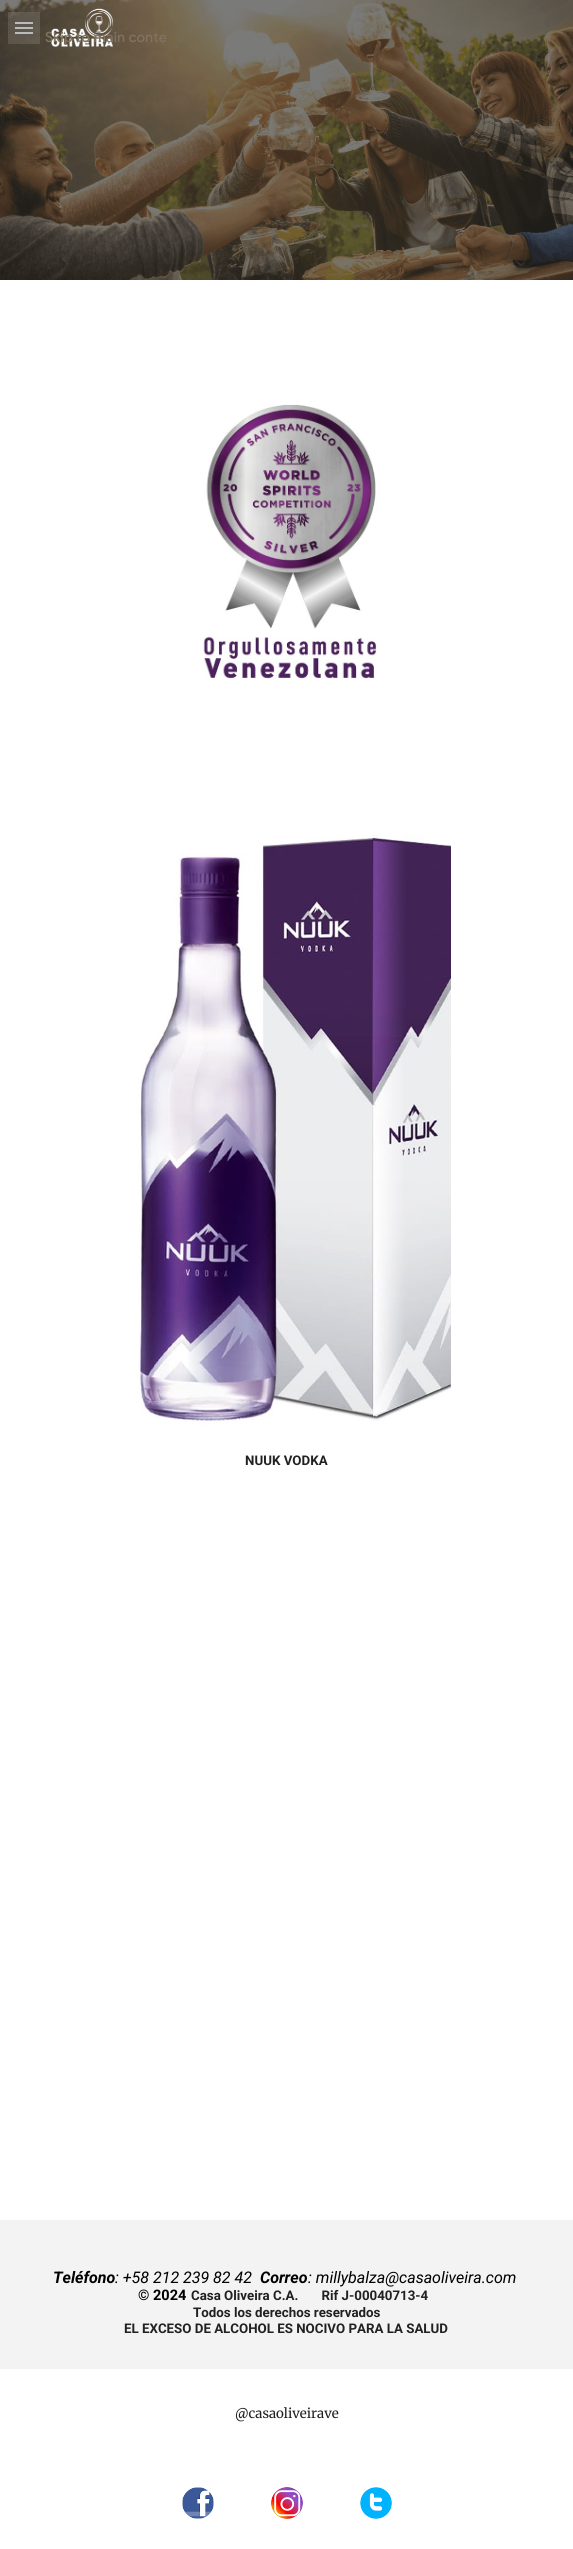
import math
import cairo

surface = cairo.ImageSurface(cairo.FORMAT_RGB24, 573, 2549)
ctx = cairo.Context(surface)
options = cairo.FontOptions()
options.set_hint_metrics(cairo.HINT_METRICS_OFF)
options.set_hint_style(cairo.HINT_STYLE_NONE)
ctx.set_font_options(options)
ctx.set_miter_limit(4)


def set_color(code):
    ctx.set_source_rgb(*(v / 255 for v in bytes.fromhex(code[-6:])))


def draw_text(x, y, s, family, size, color, bold=False, italic=False):
    ctx.select_font_face(family, cairo.FONT_SLANT_ITALIC if italic else cairo.FONT_SLANT_NORMAL, cairo.FONT_WEIGHT_BOLD if bold else cairo.FONT_WEIGHT_NORMAL)
    ctx.set_font_size(size)
    set_color(color)
    ctx.move_to(x, y)
    ctx.show_text(s)


def draw_spaced(x, y, s, letter, word):
    ctx.move_to(x, y)
    for ch in s:
        ctx.show_text(ch)
        ctx.rel_move_to(letter + word * (ch == ' '), 0)


def fill_rect(x, y, w, h, color):
    set_color(color)
    ctx.rectangle(x, y, w, h)
    ctx.fill()


def draw_image(path, x, y, w, h):
    ctx.save()
    ctx.set_source_surface(cairo.ImageSurface.create_from_png(path), x, y)
    ctx.rectangle(x, y, w, h)
    ctx.fill()
    ctx.restore()


set_color("#ffffff")
ctx.paint()
draw_image("assets/img2.png", 0, 0, 573, 280)
draw_image("assets/img1.png", 51, 8, 63, 39)
ctx.select_font_face("Google Sans Medium")
ctx.set_font_size(14)
set_color("#7f7362")
draw_spaced(45, 42, "Skip to main conte", 0.1, 0)
fill_rect(15, 22, 18, 2, "#b2b2b2")
fill_rect(15, 27, 18, 2, "#b2b2b2")
fill_rect(15, 32, 18, 2, "#b2b2b2")
ctx.set_source_rgba(1, 1, 1, 0.12)
ctx.rectangle(8, 12, 32, 32)
ctx.fill()
draw_image("assets/img3.png", 203, 404, 175, 276)
draw_image("assets/img4.png", 138, 835, 313, 591)
draw_text(245, 1465, "NUUK VODKA", "Roboto", 13.3, "#212121", bold=True)
fill_rect(0, 2220, 573, 149, "#f3f3f3")
draw_text(53, 2283, "Teléfono", "Roboto", 16, "#000000", bold=True, italic=True)
draw_text(115, 2283, ": +58 212 239 82 42", "Roboto", 16, "#000000", italic=True)
draw_text(260, 2283, "Correo", "Roboto", 16, "#000000", bold=True, italic=True)
draw_text(308, 2283, ": millybalza@casaoliveira.com", "Roboto", 16, "#000000", italic=True)
draw_text(138, 2300, "© 2024", "Roboto", 14.5, "#000000", bold=True)
draw_text(191, 2300, "Casa Oliveira C.A.       Rif J-00040713-4", "Roboto", 13.3, "#212121", bold=True)
draw_text(193, 2317, "Todos los derechos reservados", "Roboto", 13.3, "#212121", bold=True)
draw_text(124, 2333, "EL EXCESO DE ALCOHOL ES NOCIVO PARA LA SALUD", "Roboto", 13.3, "#212121", bold=True)
draw_text(235, 2418, "@casaoliveirave", "Merriweather", 13.3, "#212121")
draw_image("assets/img5.png", 182, 2487, 32, 32)
draw_image("assets/img6.png", 271, 2487, 32, 32)
draw_image("assets/img7.png", 360, 2487, 32, 32)
surface.write_to_png("output.png")
